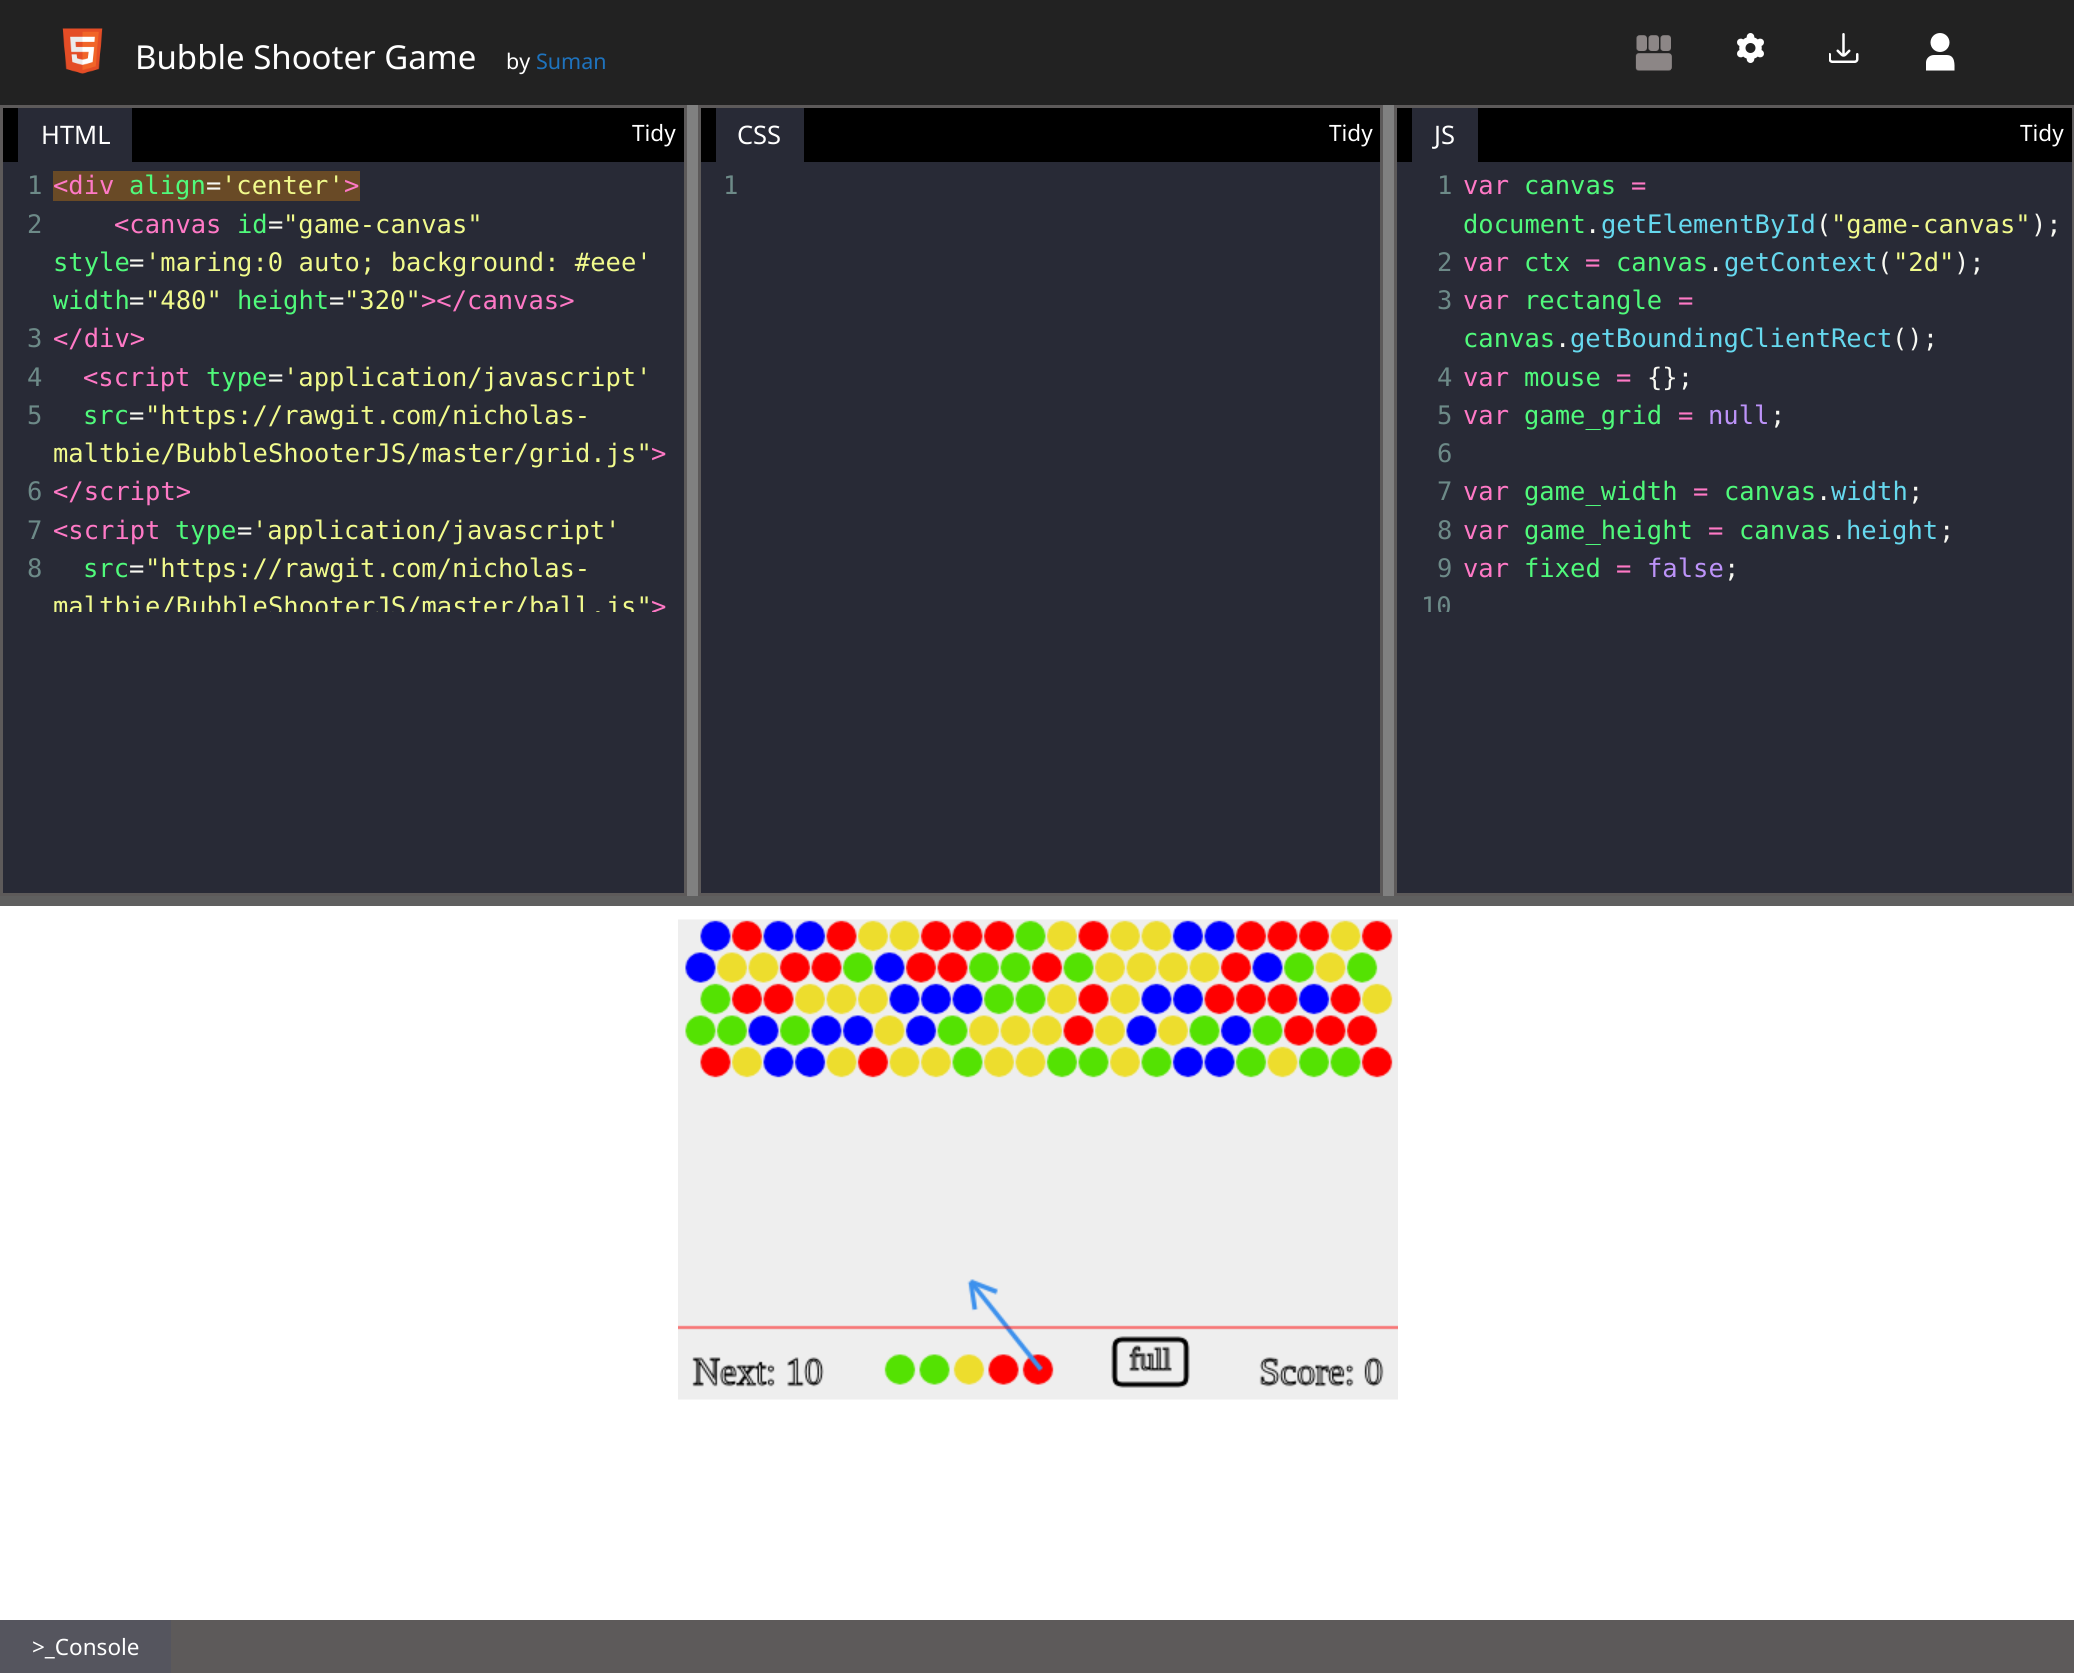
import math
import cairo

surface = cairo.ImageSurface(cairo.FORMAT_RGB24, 2074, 1673)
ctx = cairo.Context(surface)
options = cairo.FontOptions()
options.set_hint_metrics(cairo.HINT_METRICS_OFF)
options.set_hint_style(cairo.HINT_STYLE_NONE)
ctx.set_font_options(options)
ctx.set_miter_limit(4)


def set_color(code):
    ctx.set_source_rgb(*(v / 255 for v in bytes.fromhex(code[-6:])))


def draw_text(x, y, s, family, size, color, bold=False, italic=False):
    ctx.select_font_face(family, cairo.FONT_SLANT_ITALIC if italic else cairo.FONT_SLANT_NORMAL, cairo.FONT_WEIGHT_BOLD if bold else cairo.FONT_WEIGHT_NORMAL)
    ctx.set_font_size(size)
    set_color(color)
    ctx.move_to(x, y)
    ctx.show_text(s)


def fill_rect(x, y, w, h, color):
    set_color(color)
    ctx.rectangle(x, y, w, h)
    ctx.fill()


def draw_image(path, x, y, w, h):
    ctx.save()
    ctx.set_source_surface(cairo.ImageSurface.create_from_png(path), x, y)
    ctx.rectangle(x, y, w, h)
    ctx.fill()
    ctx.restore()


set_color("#ffffff")
ctx.paint()
fill_rect(0, 0, 2074, 105, "#222222")
draw_image("assets/img1.png", 62, 28, 41, 46)
draw_text(135, 69, "Bubble Shooter Game", "Noto Sans", 33, "#ffffff")
draw_text(506, 69, "by", "Noto Sans", 21.5, "#ffffff")
draw_text(536, 69, "Suman", "Noto Sans", 21.5, "#1e73be")
draw_image("assets/img2.png", 1635, 35, 37, 36)
draw_image("assets/img3.png", 1737, 33, 27, 30)
draw_image("assets/img4.png", 1829, 33, 30, 30)
set_color("#ffffff")
ctx.arc(1940, 42.5, 9.5, 0, 2 * math.pi)
ctx.fill()
ctx.new_path()
ctx.move_to(1946.5, 55)
ctx.line_to(1934, 55)
ctx.curve_to(1929.5, 55, 1926, 58.5, 1926, 62.5)
ctx.line_to(1926, 70.5)
ctx.line_to(1954.5, 70.5)
ctx.curve_to(1954.5, 64.5, 1955.5, 55, 1946.5, 55)
ctx.close_path()
ctx.fill()
fill_rect(3, 162, 2069, 731, "#282a36")
ctx.rectangle(1.5, 106.5, 684, 788)
set_color("#5d5a5a")
ctx.set_line_width(3)
ctx.stroke()
fill_rect(3, 108, 681, 54, "#000000")
fill_rect(18, 108, 114, 54, "#282a36")
draw_text(41, 144, "HTML", "Noto Sans", 25.5, "#ffffff")
draw_text(632, 141, "Tidy", "Noto Sans", 22.5, "#ffffff")
draw_text(27, 194, "1", "DejaVu Sans Mono", 25.5, "#6d8a88")
fill_rect(53, 171, 307, 30, "#694a26")
draw_text(53, 194, "<div", "DejaVu Sans Mono", 25.5, "#ff79c6")
draw_text(129, 194, "align", "DejaVu Sans Mono", 25.5, "#50fa7b")
draw_text(206, 194, "=", "DejaVu Sans Mono", 25.5, "#f8f8f2")
draw_text(221, 194, "'center'", "DejaVu Sans Mono", 25.5, "#f1fa8c")
draw_text(344, 194, ">", "DejaVu Sans Mono", 25.5, "#ff79c6")
draw_text(27, 233, "2", "DejaVu Sans Mono", 25.5, "#6d8a88")
draw_text(114, 233, "<canvas", "DejaVu Sans Mono", 25.5, "#ff79c6")
draw_text(237, 233, "id", "DejaVu Sans Mono", 25.5, "#50fa7b")
draw_text(268, 233, "=", "DejaVu Sans Mono", 25.5, "#f8f8f2")
draw_text(283, 233, "\"game-canvas\"", "DejaVu Sans Mono", 25.5, "#f1fa8c")
draw_text(53, 271, "style", "DejaVu Sans Mono", 25.5, "#50fa7b")
draw_text(129, 271, "=", "DejaVu Sans Mono", 25.5, "#f8f8f2")
draw_text(145, 271, "'maring:0 auto; background: #eee'", "DejaVu Sans Mono", 25.5, "#f1fa8c")
draw_text(53, 309, "width", "DejaVu Sans Mono", 25.5, "#50fa7b")
draw_text(129, 309, "=", "DejaVu Sans Mono", 25.5, "#f8f8f2")
draw_text(145, 309, "\"480\"", "DejaVu Sans Mono", 25.5, "#f1fa8c")
draw_text(237, 309, "height", "DejaVu Sans Mono", 25.5, "#50fa7b")
draw_text(329, 309, "=", "DejaVu Sans Mono", 25.5, "#f8f8f2")
draw_text(344, 309, "\"320\"", "DejaVu Sans Mono", 25.5, "#f1fa8c")
draw_text(421, 309, "></canvas>", "DejaVu Sans Mono", 25.5, "#ff79c6")
draw_text(27, 347, "3", "DejaVu Sans Mono", 25.5, "#6d8a88")
draw_text(53, 347, "</div>", "DejaVu Sans Mono", 25.5, "#ff79c6")
draw_text(27, 386, "4", "DejaVu Sans Mono", 25.5, "#6d8a88")
draw_text(83, 386, "<script", "DejaVu Sans Mono", 25.5, "#ff79c6")
draw_text(206, 386, "type", "DejaVu Sans Mono", 25.5, "#50fa7b")
draw_text(268, 386, "=", "DejaVu Sans Mono", 25.5, "#f8f8f2")
draw_text(283, 386, "'application/javascript'", "DejaVu Sans Mono", 25.5, "#f1fa8c")
draw_text(27, 424, "5", "DejaVu Sans Mono", 25.5, "#6d8a88")
draw_text(83, 424, "src", "DejaVu Sans Mono", 25.5, "#50fa7b")
draw_text(129, 424, "=", "DejaVu Sans Mono", 25.5, "#f8f8f2")
draw_text(145, 424, "\"https://rawgit.com/nicholas-", "DejaVu Sans Mono", 25.5, "#f1fa8c")
draw_text(53, 462, "maltbie/BubbleShooterJS/master/grid.js\"", "DejaVu Sans Mono", 25.5, "#f1fa8c")
draw_text(651, 462, ">", "DejaVu Sans Mono", 25.5, "#ff79c6")
draw_text(27, 500, "6", "DejaVu Sans Mono", 25.5, "#6d8a88")
draw_text(53, 500, "</script>", "DejaVu Sans Mono", 25.5, "#ff79c6")
draw_text(27, 539, "7", "DejaVu Sans Mono", 25.5, "#6d8a88")
draw_text(53, 539, "<script", "DejaVu Sans Mono", 25.5, "#ff79c6")
draw_text(175, 539, "type", "DejaVu Sans Mono", 25.5, "#50fa7b")
draw_text(237, 539, "=", "DejaVu Sans Mono", 25.5, "#f8f8f2")
draw_text(252, 539, "'application/javascript'", "DejaVu Sans Mono", 25.5, "#f1fa8c")
draw_text(27, 577, "8", "DejaVu Sans Mono", 25.5, "#6d8a88")
draw_text(83, 577, "src", "DejaVu Sans Mono", 25.5, "#50fa7b")
draw_text(129, 577, "=", "DejaVu Sans Mono", 25.5, "#f8f8f2")
draw_text(145, 577, "\"https://rawgit.com/nicholas-", "DejaVu Sans Mono", 25.5, "#f1fa8c")
ctx.save()
ctx.rectangle(3, 162, 681, 450)
ctx.clip()
draw_text(53, 615, "maltbie/BubbleShooterJS/master/ball.js\"", "DejaVu Sans Mono", 25.5, "#f1fa8c")
draw_text(651, 615, ">", "DejaVu Sans Mono", 25.5, "#ff79c6")
ctx.restore()
fill_rect(687, 105, 11, 791, "#808080")
ctx.rectangle(699.5, 106.5, 682, 788)
set_color("#5d5a5a")
ctx.stroke()
fill_rect(701, 108, 679, 54, "#000000")
fill_rect(716, 108, 88, 54, "#282a36")
draw_text(737, 144, "CSS", "Noto Sans", 25.5, "#ffffff")
draw_text(1329, 141, "Tidy", "Noto Sans", 22.5, "#ffffff")
draw_text(723, 194, "1", "DejaVu Sans Mono", 25.5, "#6d8a88")
fill_rect(1383, 105, 11, 791, "#808080")
ctx.rectangle(1395.5, 106.5, 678, 788)
set_color("#5d5a5a")
ctx.stroke()
fill_rect(1397, 108, 675, 54, "#000000")
fill_rect(1412, 108, 66, 54, "#282a36")
draw_text(1434, 144, "JS", "Noto Sans", 25.5, "#ffffff")
draw_text(2020, 141, "Tidy", "Noto Sans", 22.5, "#ffffff")
draw_text(1437, 194, "1", "DejaVu Sans Mono", 25.5, "#6d8a88")
draw_text(1463, 194, "var", "DejaVu Sans Mono", 25.5, "#ff79c6")
draw_text(1524, 194, "canvas", "DejaVu Sans Mono", 25.5, "#50fa7b")
draw_text(1631, 194, "=", "DejaVu Sans Mono", 25.5, "#ff79c6")
draw_text(1463, 233, "document", "DejaVu Sans Mono", 25.5, "#50fa7b")
draw_text(1585, 233, ".", "DejaVu Sans Mono", 25.5, "#f8f8f2")
draw_text(1601, 233, "getElementById", "DejaVu Sans Mono", 25.5, "#66d9ef")
draw_text(1816, 233, "(", "DejaVu Sans Mono", 25.5, "#f8f8f2")
draw_text(1831, 233, "\"game-canvas\"", "DejaVu Sans Mono", 25.5, "#f1fa8c")
draw_text(2031, 233, ");", "DejaVu Sans Mono", 25.5, "#f8f8f2")
draw_text(1437, 271, "2", "DejaVu Sans Mono", 25.5, "#6d8a88")
draw_text(1463, 271, "var", "DejaVu Sans Mono", 25.5, "#ff79c6")
draw_text(1524, 271, "ctx", "DejaVu Sans Mono", 25.5, "#50fa7b")
draw_text(1585, 271, "=", "DejaVu Sans Mono", 25.5, "#ff79c6")
draw_text(1616, 271, "canvas", "DejaVu Sans Mono", 25.5, "#50fa7b")
draw_text(1724, 271, "getContext", "DejaVu Sans Mono", 25.5, "#66d9ef")
draw_text(1877, 271, "(", "DejaVu Sans Mono", 25.5, "#f8f8f2")
draw_text(1893, 271, "\"2d\"", "DejaVu Sans Mono", 25.5, "#f1fa8c")
draw_text(1954, 271, ");", "DejaVu Sans Mono", 25.5, "#f8f8f2")
draw_text(1708, 271, ".", "DejaVu Sans Mono", 25.5, "#f8f8f2")
draw_text(1437, 309, "3", "DejaVu Sans Mono", 25.5, "#6d8a88")
draw_text(1463, 309, "var", "DejaVu Sans Mono", 25.5, "#ff79c6")
draw_text(1524, 309, "rectangle", "DejaVu Sans Mono", 25.5, "#50fa7b")
draw_text(1678, 309, "=", "DejaVu Sans Mono", 25.5, "#ff79c6")
draw_text(1463, 347, "canvas", "DejaVu Sans Mono", 25.5, "#50fa7b")
draw_text(1555, 347, ".", "DejaVu Sans Mono", 25.5, "#f8f8f2")
draw_text(1570, 347, "getBoundingClientRect", "DejaVu Sans Mono", 25.5, "#66d9ef")
draw_text(1892, 347, "();", "DejaVu Sans Mono", 25.5, "#f8f8f2")
draw_text(1437, 386, "4", "DejaVu Sans Mono", 25.5, "#6d8a88")
draw_text(1463, 386, "var", "DejaVu Sans Mono", 25.5, "#ff79c6")
draw_text(1524, 386, "mouse", "DejaVu Sans Mono", 25.5, "#50fa7b")
draw_text(1616, 386, "=", "DejaVu Sans Mono", 25.5, "#ff79c6")
draw_text(1647, 386, "{};", "DejaVu Sans Mono", 25.5, "#f8f8f2")
draw_text(1437, 424, "5", "DejaVu Sans Mono", 25.5, "#6d8a88")
draw_text(1463, 424, "var", "DejaVu Sans Mono", 25.5, "#ff79c6")
draw_text(1524, 424, "game_grid", "DejaVu Sans Mono", 25.5, "#50fa7b")
draw_text(1678, 424, "=", "DejaVu Sans Mono", 25.5, "#ff79c6")
draw_text(1708, 424, "null", "DejaVu Sans Mono", 25.5, "#bd93f9")
draw_text(1770, 424, ";", "DejaVu Sans Mono", 25.5, "#f8f8f2")
draw_text(1437, 462, "6", "DejaVu Sans Mono", 25.5, "#6d8a88")
draw_text(1437, 500, "7", "DejaVu Sans Mono", 25.5, "#6d8a88")
draw_text(1463, 500, "var", "DejaVu Sans Mono", 25.5, "#ff79c6")
draw_text(1524, 500, "game_width", "DejaVu Sans Mono", 25.5, "#50fa7b")
draw_text(1693, 500, "=", "DejaVu Sans Mono", 25.5, "#ff79c6")
draw_text(1724, 500, "canvas", "DejaVu Sans Mono", 25.5, "#50fa7b")
draw_text(1831, 500, "width", "DejaVu Sans Mono", 25.5, "#66d9ef")
draw_text(1908, 500, ";", "DejaVu Sans Mono", 25.5, "#f8f8f2")
draw_text(1816, 500, ".", "DejaVu Sans Mono", 25.5, "#f8f8f2")
draw_text(1437, 539, "8", "DejaVu Sans Mono", 25.5, "#6d8a88")
draw_text(1463, 539, "var", "DejaVu Sans Mono", 25.5, "#ff79c6")
draw_text(1524, 539, "game_height", "DejaVu Sans Mono", 25.5, "#50fa7b")
draw_text(1708, 539, "=", "DejaVu Sans Mono", 25.5, "#ff79c6")
draw_text(1739, 539, "canvas", "DejaVu Sans Mono", 25.5, "#50fa7b")
draw_text(1846, 539, "height", "DejaVu Sans Mono", 25.5, "#66d9ef")
draw_text(1939, 539, ";", "DejaVu Sans Mono", 25.5, "#f8f8f2")
draw_text(1831, 539, ".", "DejaVu Sans Mono", 25.5, "#f8f8f2")
draw_text(1437, 577, "9", "DejaVu Sans Mono", 25.5, "#6d8a88")
draw_text(1463, 577, "var", "DejaVu Sans Mono", 25.5, "#ff79c6")
draw_text(1524, 577, "fixed", "DejaVu Sans Mono", 25.5, "#50fa7b")
draw_text(1616, 577, "=", "DejaVu Sans Mono", 25.5, "#ff79c6")
draw_text(1647, 577, "false", "DejaVu Sans Mono", 25.5, "#bd93f9")
draw_text(1724, 577, ";", "DejaVu Sans Mono", 25.5, "#f8f8f2")
ctx.save()
ctx.rectangle(1397, 162, 675, 450)
ctx.clip()
draw_text(1421, 615, "10", "DejaVu Sans Mono", 25.5, "#6d8a88")
ctx.restore()
fill_rect(0, 896, 2074, 10, "#5f5f5f")
draw_image("assets/img5.png", 678, 919, 720, 481)
fill_rect(171, 1620, 1903, 53, "#5d5a5a")
fill_rect(0, 1620, 171, 53, "#55555e")
draw_text(32, 1655, ">_Console", "Noto Sans", 22.5, "#ffffff")
surface.write_to_png("output.png")
